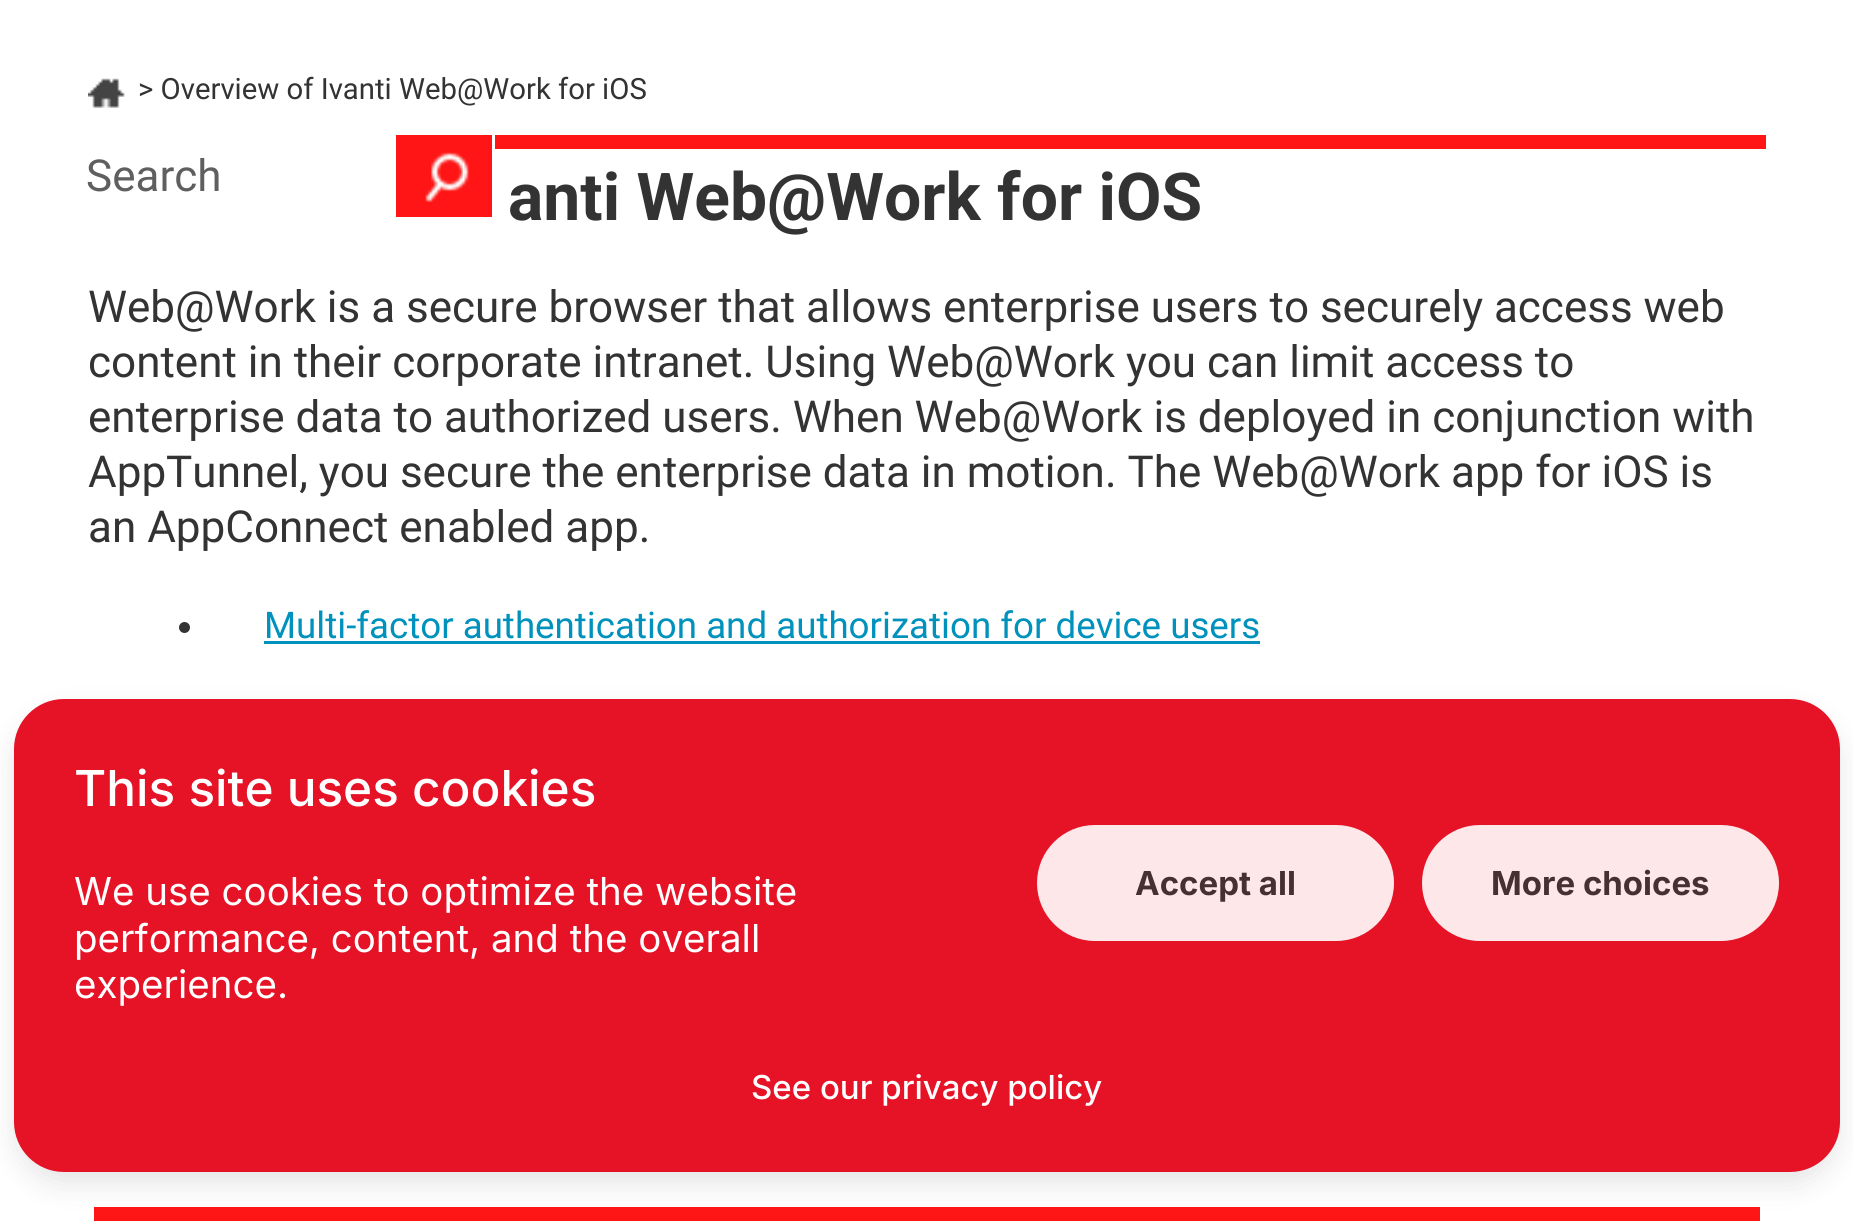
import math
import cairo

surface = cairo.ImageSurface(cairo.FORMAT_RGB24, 1853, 1230)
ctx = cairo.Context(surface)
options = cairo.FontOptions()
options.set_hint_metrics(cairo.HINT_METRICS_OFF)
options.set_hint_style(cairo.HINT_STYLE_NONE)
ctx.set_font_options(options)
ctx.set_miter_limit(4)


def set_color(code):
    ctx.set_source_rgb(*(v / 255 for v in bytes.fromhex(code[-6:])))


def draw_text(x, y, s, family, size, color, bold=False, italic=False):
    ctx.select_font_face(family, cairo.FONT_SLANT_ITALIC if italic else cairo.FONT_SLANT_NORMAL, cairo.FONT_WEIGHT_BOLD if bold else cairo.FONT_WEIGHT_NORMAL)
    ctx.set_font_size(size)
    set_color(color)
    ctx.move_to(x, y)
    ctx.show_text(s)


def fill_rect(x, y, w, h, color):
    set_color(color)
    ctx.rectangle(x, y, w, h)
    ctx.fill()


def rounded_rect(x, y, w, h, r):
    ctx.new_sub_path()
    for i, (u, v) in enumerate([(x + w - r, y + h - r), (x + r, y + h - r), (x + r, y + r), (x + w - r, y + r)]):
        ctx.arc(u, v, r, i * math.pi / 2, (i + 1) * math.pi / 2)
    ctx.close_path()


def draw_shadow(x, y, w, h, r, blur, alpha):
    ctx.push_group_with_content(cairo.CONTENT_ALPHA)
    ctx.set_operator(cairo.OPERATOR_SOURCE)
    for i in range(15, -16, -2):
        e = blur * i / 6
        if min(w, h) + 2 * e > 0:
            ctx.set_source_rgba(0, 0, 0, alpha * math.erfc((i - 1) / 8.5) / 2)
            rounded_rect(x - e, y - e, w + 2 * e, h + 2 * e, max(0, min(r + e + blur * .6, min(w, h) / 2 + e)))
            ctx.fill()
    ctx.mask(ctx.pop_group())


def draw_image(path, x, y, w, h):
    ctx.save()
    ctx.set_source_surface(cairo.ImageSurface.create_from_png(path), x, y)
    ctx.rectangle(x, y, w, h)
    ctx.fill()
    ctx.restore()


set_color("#ffffff")
ctx.paint()
fill_rect(495, 135, 1271, 14, "#ff1515")
draw_image("assets/img1.png", 88, 78, 37, 30)
draw_text(138, 99, "> Overview of Ivanti Web@Work for iOS", "Roboto", 29.3, "#333333")
draw_text(508, 220, "anti Web@Work for iOS", "Roboto", 66, "#333333", bold=True)
draw_text(88, 322, "Web@Work is a secure browser that allows enterprise users to securely access web", "Roboto", 44, "#333333")
draw_text(88, 377, "content in their corporate intranet. Using Web@Work you can limit access to", "Roboto", 44, "#333333")
draw_text(88, 432, "enterprise data to authorized users. When Web@Work is deployed in conjunction with", "Roboto", 44, "#333333")
draw_text(88, 487, "AppTunnel, you secure the enterprise data in motion. The Web@Work app for iOS is", "Roboto", 44, "#333333")
draw_text(88, 542, "an AppConnect enabled app.", "Roboto", 44, "#333333")
ctx.new_path()
ctx.arc(184.5, 627.5, 5.5, 0, 2 * math.pi)
ctx.fill()
draw_text(264, 638, "Multi-factor authentication and authorization for device users", "Roboto", 36.7, "#0092bc")
fill_rect(264, 641, 996, 3, "#0092bc")
fill_rect(94, 1207, 1666, 14, "#ff1515")
draw_text(86, 191, "Search", "Roboto", 44, "#5f5f5f")
fill_rect(396, 135, 96, 82, "#ff1515")
draw_image("assets/img2.png", 425, 152, 44, 51)
set_color("#000000")
draw_shadow(14, 712, 1826, 473, 50, 14, 0.1)
set_color("#e61226")
rounded_rect(15.5, 700.5, 1823, 470, 48.5)
ctx.fill_preserve()
ctx.set_line_width(3)
ctx.stroke()
draw_text(74, 806, "This site uses cookies", "Inter Medium", 49.5, "#ffffff")
draw_text(74, 905, "We use cookies to optimize the website", "Inter", 38.5, "#ffffff")
draw_text(74, 952, "performance, content, and the overall", "Inter", 38.5, "#ffffff")
draw_text(74, 998, "experience.", "Inter", 38.5, "#ffffff")
set_color("#fde7e9")
rounded_rect(1037, 825, 357, 116, 58)
ctx.fill()
draw_text(1135, 895, "Accept all", "Inter", 33, "#453032", bold=True)
set_color("#fde7e9")
rounded_rect(1422, 825, 357, 116, 58)
ctx.fill()
draw_text(1491, 895, "More choices", "Inter", 33, "#453032", bold=True)
draw_text(751, 1099, "See our privacy policy", "Inter Medium", 33, "#ffffff")
surface.write_to_png("output.png")
